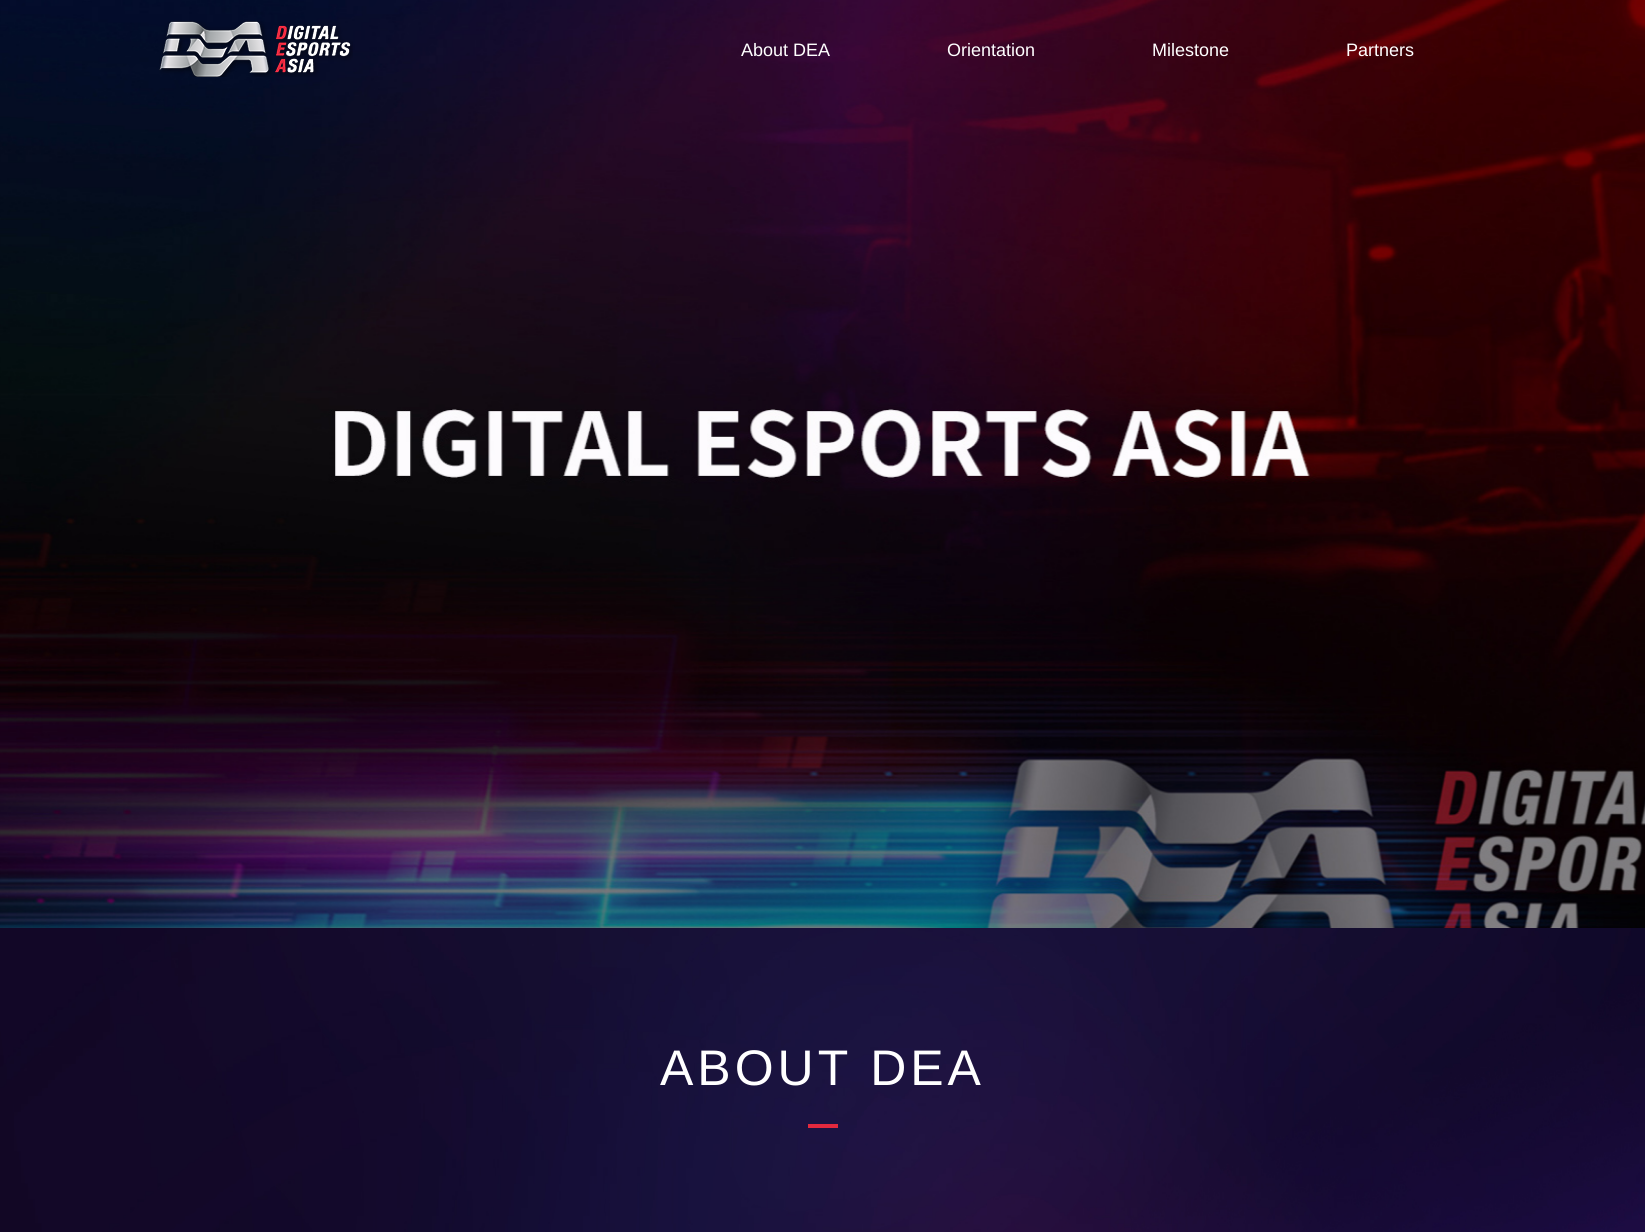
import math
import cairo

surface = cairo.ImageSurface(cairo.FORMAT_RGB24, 1645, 1232)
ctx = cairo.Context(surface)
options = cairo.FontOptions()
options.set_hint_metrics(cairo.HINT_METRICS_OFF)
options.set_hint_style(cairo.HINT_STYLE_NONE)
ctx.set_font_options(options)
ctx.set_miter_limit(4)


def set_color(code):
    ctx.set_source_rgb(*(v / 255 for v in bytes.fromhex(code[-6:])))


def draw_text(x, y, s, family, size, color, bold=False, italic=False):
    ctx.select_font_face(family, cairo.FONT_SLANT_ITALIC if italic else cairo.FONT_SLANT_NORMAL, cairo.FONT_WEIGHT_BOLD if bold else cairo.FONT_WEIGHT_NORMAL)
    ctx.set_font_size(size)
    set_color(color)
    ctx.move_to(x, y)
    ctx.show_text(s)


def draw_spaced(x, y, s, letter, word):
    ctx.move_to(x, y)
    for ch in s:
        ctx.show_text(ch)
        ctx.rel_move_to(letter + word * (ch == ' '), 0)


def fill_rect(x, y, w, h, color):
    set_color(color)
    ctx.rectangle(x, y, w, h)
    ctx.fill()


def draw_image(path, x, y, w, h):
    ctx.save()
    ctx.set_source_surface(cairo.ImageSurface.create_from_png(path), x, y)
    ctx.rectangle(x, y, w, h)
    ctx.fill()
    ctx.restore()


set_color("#ffffff")
ctx.paint()
draw_image("assets/img1.png", 0, 0, 1645, 928)
draw_image("assets/img2.png", 159, 21, 194, 56)
draw_text(741, 56, "About DEA", "Liberation Sans", 18, "#ffffff")
draw_text(947, 56, "Orientation", "Liberation Sans", 18, "#ffffff")
draw_text(1152, 56, "Milestone", "Liberation Sans", 18, "#ffffff")
draw_text(1346, 56, "Partners", "Liberation Sans", 18, "#ffffff")
draw_image("assets/img3.png", 0, 928, 1645, 304)
ctx.set_font_size(50)
draw_spaced(660, 1085, "ABOUT DEA", 4, 0)
fill_rect(808, 1124, 30, 4, "#e3293e")
surface.write_to_png("output.png")
